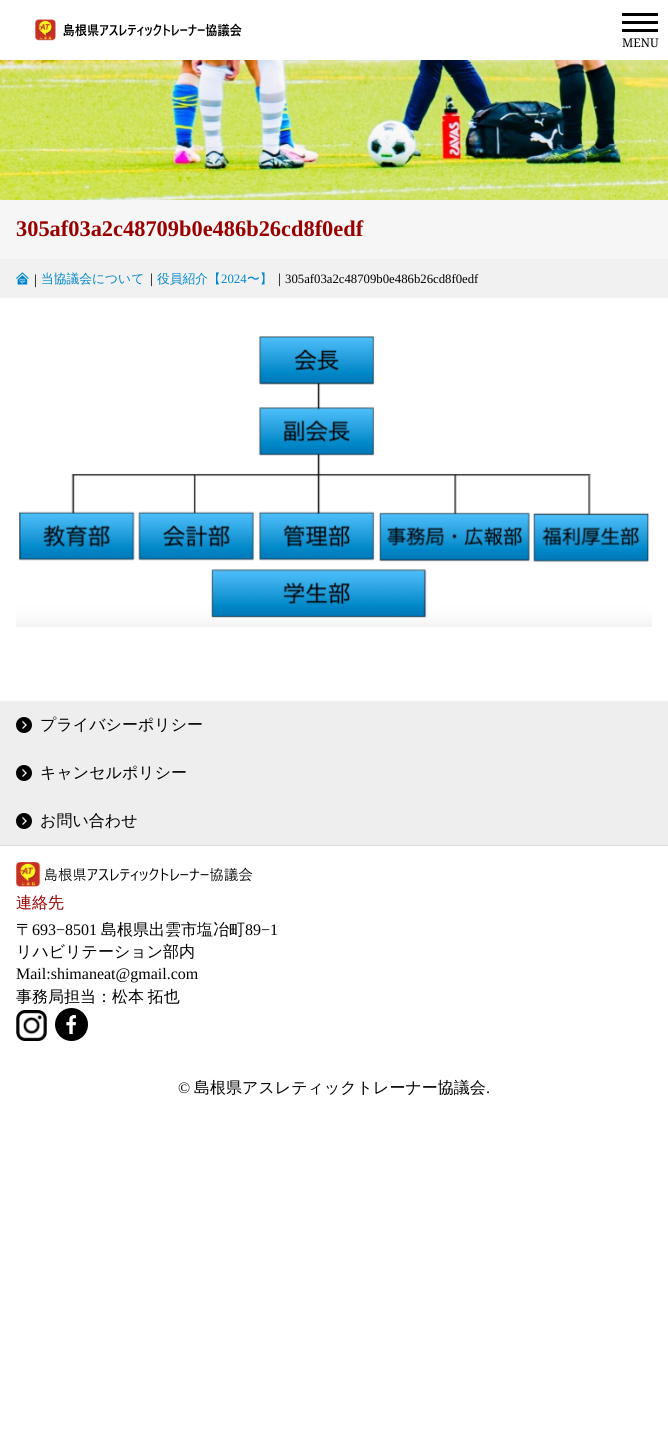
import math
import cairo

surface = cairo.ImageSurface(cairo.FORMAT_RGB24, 668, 1456)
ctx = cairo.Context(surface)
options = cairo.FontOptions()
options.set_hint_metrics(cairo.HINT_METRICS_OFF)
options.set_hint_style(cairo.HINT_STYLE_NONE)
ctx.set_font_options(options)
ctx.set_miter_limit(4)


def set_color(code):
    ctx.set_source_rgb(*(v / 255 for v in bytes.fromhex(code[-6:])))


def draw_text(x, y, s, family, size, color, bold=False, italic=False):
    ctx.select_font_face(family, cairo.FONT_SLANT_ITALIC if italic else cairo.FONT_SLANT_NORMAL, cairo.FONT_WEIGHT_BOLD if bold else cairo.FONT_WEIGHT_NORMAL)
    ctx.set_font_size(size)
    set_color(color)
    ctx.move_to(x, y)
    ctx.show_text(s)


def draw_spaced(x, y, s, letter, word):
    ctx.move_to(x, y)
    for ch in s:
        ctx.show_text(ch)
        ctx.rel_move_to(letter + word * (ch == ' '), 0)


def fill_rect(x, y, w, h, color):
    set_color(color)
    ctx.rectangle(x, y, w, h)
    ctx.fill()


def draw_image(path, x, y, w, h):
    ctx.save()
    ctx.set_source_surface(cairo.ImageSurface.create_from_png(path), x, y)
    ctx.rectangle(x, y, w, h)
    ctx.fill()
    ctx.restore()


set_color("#ffffff")
ctx.paint()
draw_image("assets/img1.png", 35, 19, 207, 22)
draw_image("assets/img2.png", 0, 60, 668, 140)
fill_rect(622, 13, 36, 3, "#000000")
fill_rect(622, 21, 36, 3, "#000000")
fill_rect(622, 29, 36, 3, "#000000")
draw_text(622, 47, "MENU", "Noto Serif", 12, "#000000")
fill_rect(0, 200, 668, 59, "#f6f6f6")
draw_text(16, 236, "305af03a2c48709b0e486b26cd8f0edf", "Liberation Serif", 22.4, "#990000", bold=True)
fill_rect(0, 259, 668, 39, "#f1f1f1")
draw_image("assets/img3.png", 16, 272, 13, 13)
draw_text(29, 284, "｜", "WenQuanYi Zen Hei Medium", 12.75, "#000000")
draw_text(41, 283, "当協議会について", "WenQuanYi Zen Hei Medium", 12.75, "#0086ca")
draw_text(145, 283, "｜", "WenQuanYi Zen Hei Medium", 12.75, "#000000")
draw_text(157, 283, "役員紹介【", "WenQuanYi Zen Hei Medium", 12.75, "#0086ca")
draw_text(221, 283, "2024", "Liberation Serif", 12.75, "#0086ca")
draw_text(247, 283, "〜】", "WenQuanYi Zen Hei Medium", 12.75, "#0086ca")
draw_text(273, 283, "｜", "WenQuanYi Zen Hei Medium", 12.75, "#000000")
draw_text(285, 283, "305af03a2c48709b0e486b26cd8f0edf", "Liberation Serif", 12.75, "#000000")
draw_image("assets/img4.png", 16, 336, 636, 291)
fill_rect(0, 701, 668, 144, "#eeeeee")
draw_image("assets/img5.png", 16, 717, 16, 16)
draw_text(40, 730, "プライバシーポリシー", "WenQuanYi Zen Hei Medium", 16, "#000000")
draw_image("assets/img5.png", 16, 765, 16, 16)
draw_text(40, 778, "キャンセルポリシー", "WenQuanYi Zen Hei Medium", 16, "#000000")
draw_image("assets/img5.png", 16, 813, 16, 16)
draw_text(40, 826, "お問い合わせ", "WenQuanYi Zen Hei Medium", 16, "#000000")
fill_rect(0, 845, 668, 1, "#dddddd")
draw_image("assets/img6.png", 16, 862, 237, 25)
draw_text(16, 908, "連絡先", "WenQuanYi Zen Hei Medium", 16, "#990000")
draw_text(16, 935, "〒", "WenQuanYi Zen Hei Medium", 16, "#000000")
draw_text(32, 935, "693−8501", "Liberation Serif", 16, "#000000")
draw_text(101, 935, "島根県出雲市塩冶町", "WenQuanYi Zen Hei Medium", 16, "#000000")
draw_text(245, 935, "89−1", "Liberation Serif", 16, "#000000")
draw_text(16, 957, "リハビリテーション部内", "WenQuanYi Zen Hei Medium", 16, "#000000")
draw_text(16, 979, "Mail:shimaneat@gmail.com", "Liberation Serif", 16, "#000000")
ctx.select_font_face("WenQuanYi Zen Hei Medium")
draw_spaced(16, 1002, "事務局担当：松本 拓也", 0, -1)
draw_image("assets/img7.png", 16, 1010, 31, 31)
draw_image("assets/img8.png", 55, 1008, 33, 33)
draw_text(178, 1093, "©", "Liberation Serif", 16, "#000000")
draw_text(194, 1093, "島根県アスレティックトレーナー協議会", "WenQuanYi Zen Hei Medium", 16, "#000000")
draw_text(486, 1093, ".", "Liberation Serif", 16, "#000000")
surface.write_to_png("output.png")
